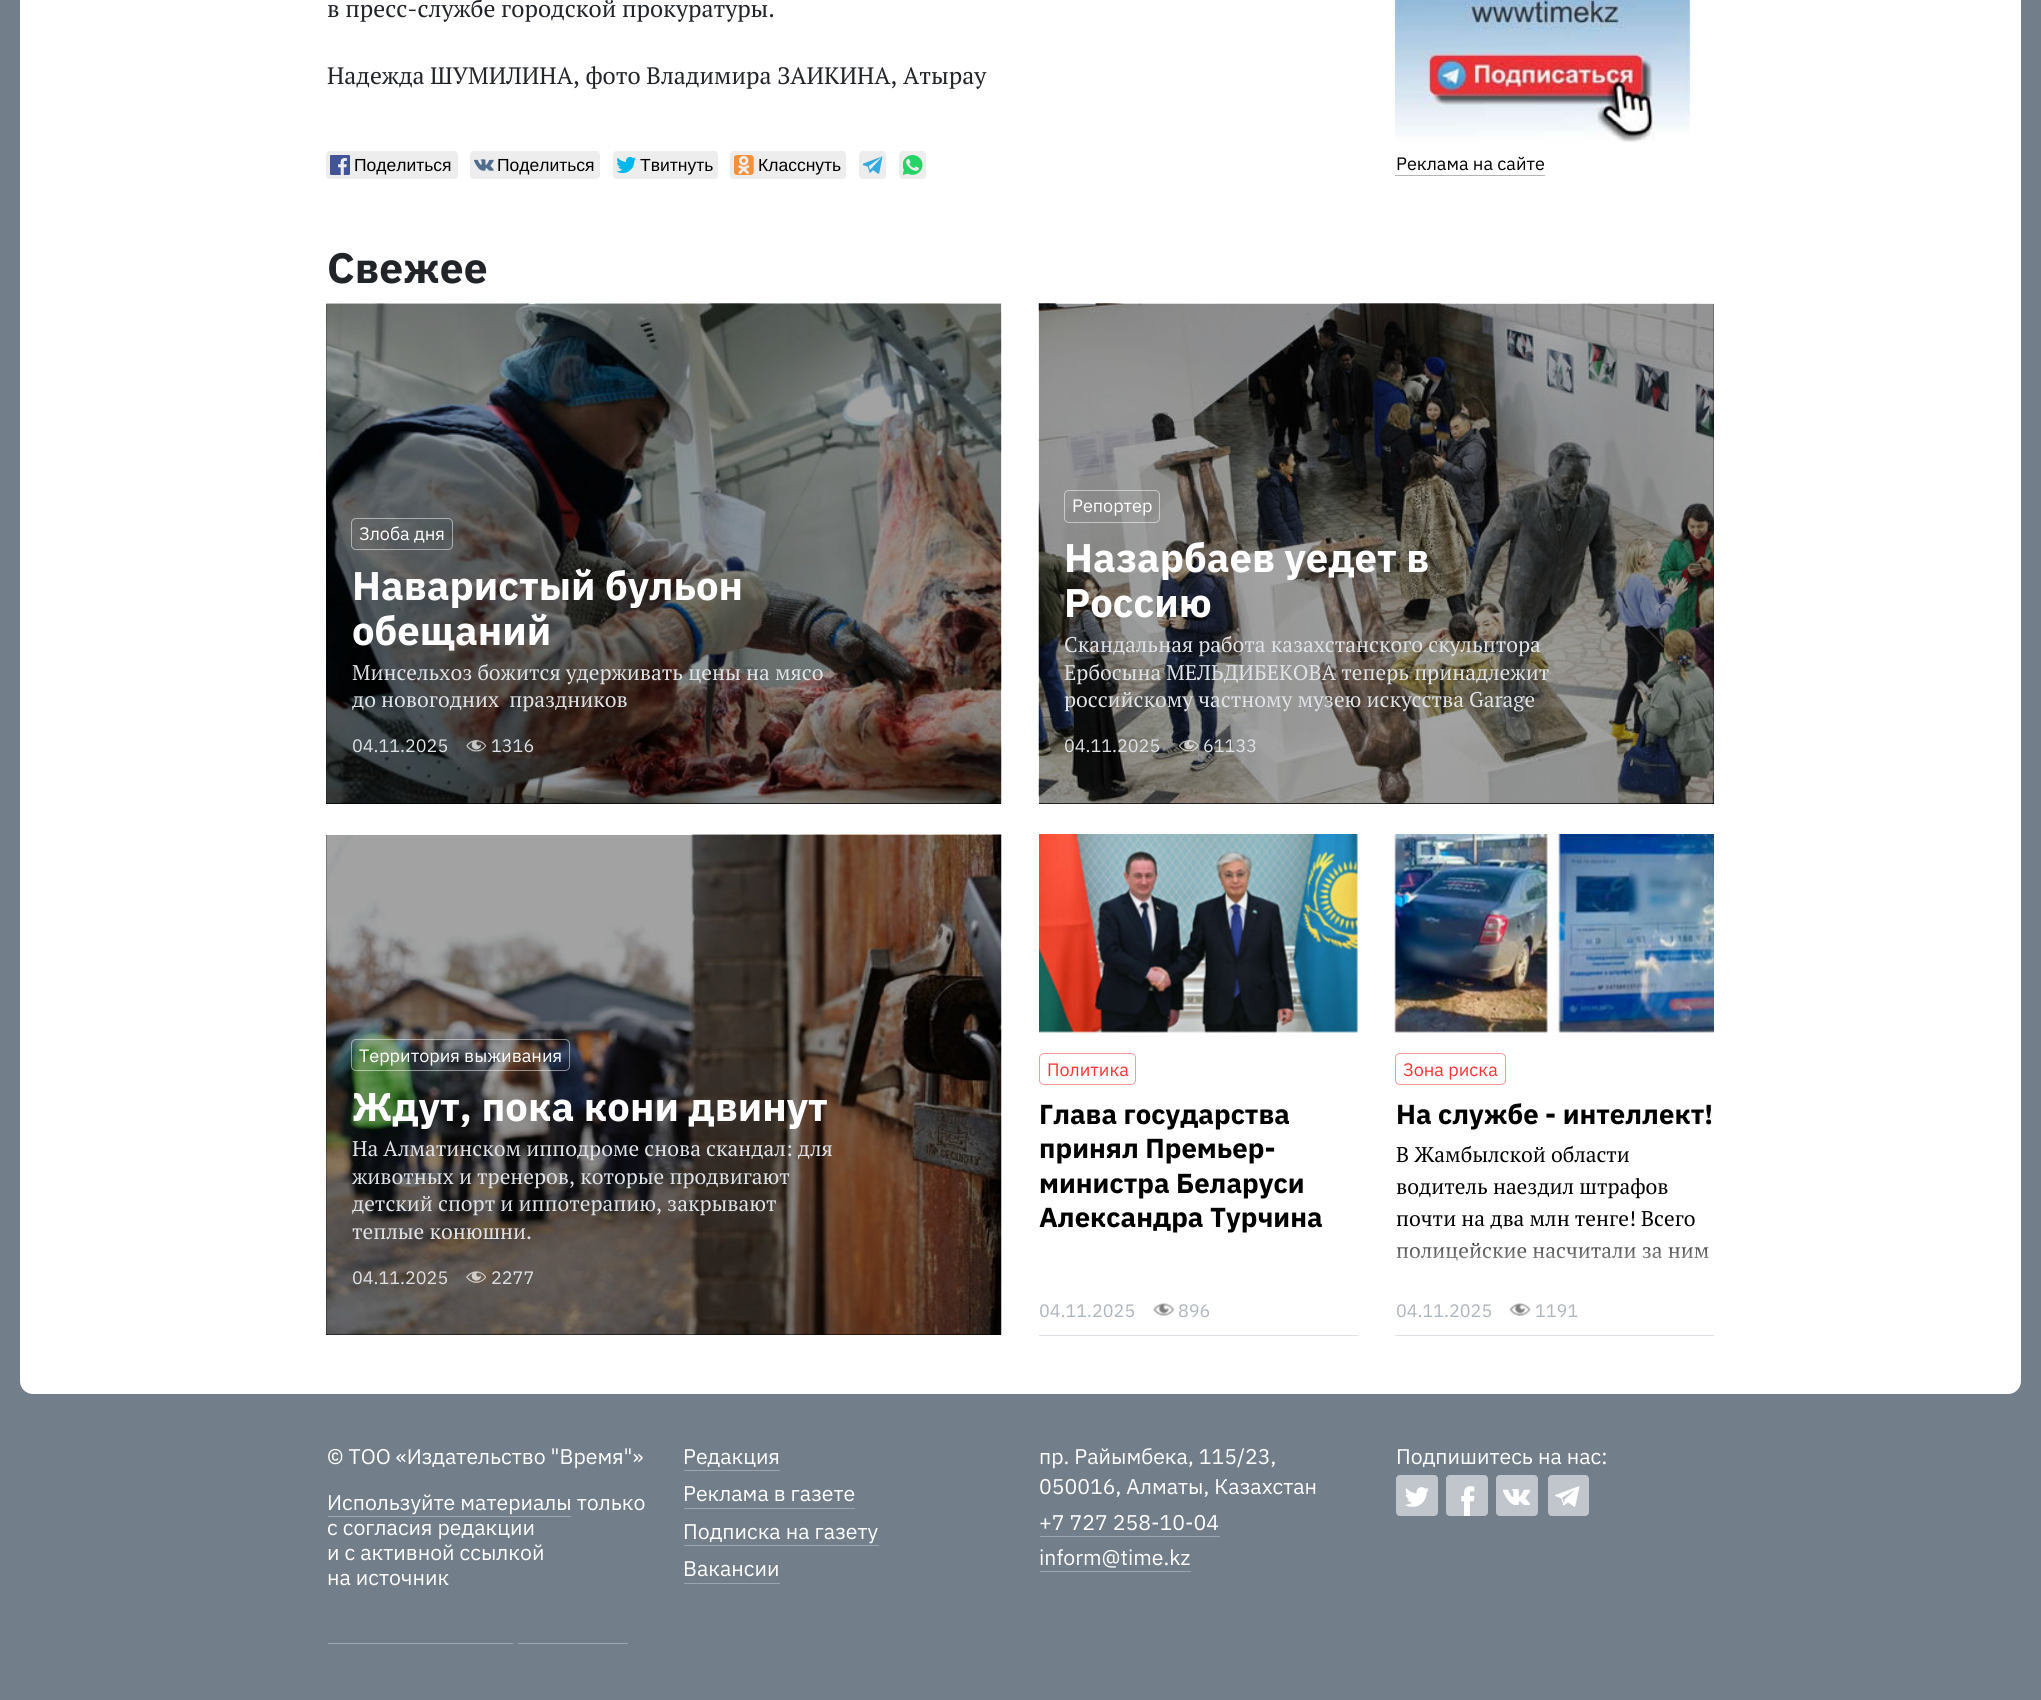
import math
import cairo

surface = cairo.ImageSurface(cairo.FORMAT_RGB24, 2041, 1700)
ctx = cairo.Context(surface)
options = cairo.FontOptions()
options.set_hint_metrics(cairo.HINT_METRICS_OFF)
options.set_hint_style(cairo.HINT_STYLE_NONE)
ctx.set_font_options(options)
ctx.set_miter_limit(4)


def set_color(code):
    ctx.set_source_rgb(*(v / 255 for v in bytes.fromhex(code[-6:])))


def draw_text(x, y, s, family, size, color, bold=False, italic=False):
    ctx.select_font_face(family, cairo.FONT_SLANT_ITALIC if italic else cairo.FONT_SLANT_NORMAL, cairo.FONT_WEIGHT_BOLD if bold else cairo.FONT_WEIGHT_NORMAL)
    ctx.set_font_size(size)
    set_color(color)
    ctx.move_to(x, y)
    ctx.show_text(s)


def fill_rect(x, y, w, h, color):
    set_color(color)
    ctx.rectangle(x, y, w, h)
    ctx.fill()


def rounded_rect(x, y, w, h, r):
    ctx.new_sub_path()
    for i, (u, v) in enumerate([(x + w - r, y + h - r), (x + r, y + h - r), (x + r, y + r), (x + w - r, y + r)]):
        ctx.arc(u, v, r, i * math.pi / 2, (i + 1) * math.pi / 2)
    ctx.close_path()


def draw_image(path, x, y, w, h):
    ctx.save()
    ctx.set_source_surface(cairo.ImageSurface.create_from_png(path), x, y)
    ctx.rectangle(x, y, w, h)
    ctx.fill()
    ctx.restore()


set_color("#727e8a")
ctx.paint()
set_color("#ffffff")
rounded_rect(20, -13, 2001, 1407, 13)
ctx.fill()
draw_text(327, 17, "в пресс-службе городской прокуратуры.", "PT Serif", 23.75, "#212529")
draw_text(327, 84, "Надежда ШУМИЛИНА, фото Владимира ЗАИКИНА, Атырау", "PT Serif", 23.75, "#212529")
set_color("#ededed")
rounded_rect(326, 151, 132, 28, 4)
ctx.fill()
draw_image("assets/img1.png", 330, 155, 20, 20)
draw_text(354, 171, "Поделиться", "Liberation Sans", 17.5, "#000000")
set_color("#ededed")
rounded_rect(470, 151, 130, 28, 4)
ctx.fill()
draw_image("assets/img2.png", 474, 159, 20, 12)
draw_text(497, 171, "Поделиться", "Liberation Sans", 17.5, "#000000")
set_color("#ededed")
rounded_rect(613, 151, 105, 28, 4)
ctx.fill()
draw_image("assets/img3.png", 616, 156, 20, 18)
draw_text(640, 171, "Твитнуть", "Liberation Sans", 17.5, "#000000")
set_color("#ededed")
rounded_rect(730, 151, 116, 28, 4)
ctx.fill()
draw_image("assets/img4.png", 734, 155, 20, 20)
draw_text(758, 171, "Класснуть", "Liberation Sans", 17.5, "#000000")
set_color("#ededed")
rounded_rect(859, 151, 27, 28, 4)
ctx.fill()
draw_image("assets/img5.png", 863, 156, 20, 18)
rounded_rect(899, 151, 27, 28, 4)
ctx.fill()
draw_image("assets/img6.png", 903, 155, 20, 20)
draw_image("assets/img7.png", 1395, 0, 296, 143)
draw_text(1396, 170, "Реклама на сайте", "IBM Plex Sans", 18, "#000000")
fill_rect(1395, 175, 150, 1, "#b3b3b3")
draw_text(327, 283, "Свежее", "IBM Plex Sans", 42.5, "#212529", bold=True)
fill_rect(326, 304, 675, 500, "#000000")
draw_image("assets/img8.png", 326, 303, 676, 501)
rounded_rect(351.5, 518.5, 101, 31, 4.5)
ctx.set_source_rgba(1, 1, 1, 0.5)
ctx.set_line_width(1)
ctx.stroke()
draw_text(359, 540, "Злоба дня", "IBM Plex Sans", 18, "#ffffff")
draw_text(352, 600, "Наваристый бульон", "IBM Plex Sans", 40, "#ffffff", bold=True)
draw_text(352, 645, "обещаний", "IBM Plex Sans", 40, "#ffffff", bold=True)
draw_text(352, 680, "Минсельхоз божится удерживать цены на мясо", "PT Serif", 21.25, "#dee2e6")
draw_text(352, 707, "до новогодних  праздников", "PT Serif", 21.25, "#dee2e6")
draw_text(352, 752, "04.11.2025", "IBM Plex Sans", 18, "#dee2e6")
draw_image("assets/img9.png", 466, 740, 21, 12)
draw_text(491, 752, "1316", "IBM Plex Sans", 18, "#dee2e6")
fill_rect(1039, 304, 675, 500, "#000000")
draw_image("assets/img10.png", 1038, 303, 676, 501)
rounded_rect(1064.5, 490.5, 95, 32, 4.5)
ctx.set_source_rgba(1, 1, 1, 0.5)
ctx.stroke()
draw_text(1072, 512, "Репортер", "IBM Plex Sans", 18, "#ffffff")
draw_text(1064, 572, "Назарбаев уедет в", "IBM Plex Sans", 40, "#ffffff", bold=True)
draw_text(1064, 617, "Россию", "IBM Plex Sans", 40, "#ffffff", bold=True)
draw_text(1064, 652, "Скандальная работа казахстанского скульптора", "PT Serif", 21.25, "#dee2e6")
draw_text(1064, 680, "Ербосына МЕЛЬДИБЕКОВА теперь принадлежит", "PT Serif", 21.25, "#dee2e6")
draw_text(1064, 707, "российскому частному музею искусства Garage", "PT Serif", 21.25, "#dee2e6")
draw_text(1064, 752, "04.11.2025", "IBM Plex Sans", 18, "#dee2e6")
draw_image("assets/img11.png", 1178, 740, 21, 12)
draw_text(1203, 752, "61133", "IBM Plex Sans", 18, "#dee2e6")
fill_rect(326, 835, 675, 500, "#000000")
draw_image("assets/img12.png", 326, 834, 676, 501)
rounded_rect(351.5, 1039.5, 218, 31, 4.5)
ctx.set_source_rgba(1, 1, 1, 0.5)
ctx.stroke()
draw_text(359, 1062, "Территория выживания", "IBM Plex Sans", 18, "#ffffff")
draw_text(352, 1121, "Ждут, пока кони двинут", "IBM Plex Sans", 40, "#ffffff", bold=True)
draw_text(352, 1156, "На Алматинском ипподроме снова скандал: для", "PT Serif", 21.25, "#dee2e6")
draw_text(352, 1184, "животных и тренеров, которые продвигают", "PT Serif", 21.25, "#dee2e6")
draw_text(352, 1211, "детский спорт и иппотерапию, закрывают", "PT Serif", 21.25, "#dee2e6")
draw_text(352, 1239, "теплые конюшни.", "PT Serif", 21.25, "#dee2e6")
draw_text(352, 1284, "04.11.2025", "IBM Plex Sans", 18, "#dee2e6")
draw_image("assets/img13.png", 466, 1271, 20, 12)
draw_text(491, 1284, "2277", "IBM Plex Sans", 18, "#dee2e6")
fill_rect(1039, 1335, 319, 1, "#dee2e6")
draw_image("assets/img14.png", 1039, 834, 319, 199)
rounded_rect(1039.5, 1053.5, 96, 31, 4.5)
set_color("#ff9999")
ctx.stroke()
draw_text(1047, 1076, "Политика", "IBM Plex Sans", 18, "#ff3333")
draw_text(1039, 1124, "Глава государства", "IBM Plex Sans", 27.5, "#000000", bold=True)
draw_text(1039, 1158, "принял Премьер-", "IBM Plex Sans", 27.5, "#000000", bold=True)
draw_text(1039, 1193, "министра Беларуси", "IBM Plex Sans", 27.5, "#000000", bold=True)
draw_text(1039, 1227, "Александра Турчина", "IBM Plex Sans", 27.5, "#000000", bold=True)
draw_text(1039, 1317, "04.11.2025", "IBM Plex Sans", 18, "#adb5bd")
draw_image("assets/img15.png", 1153, 1303, 22, 13)
draw_text(1178, 1317, "896", "IBM Plex Sans", 18, "#adb5bd")
fill_rect(1395, 1335, 319, 1, "#dee2e6")
draw_image("assets/img16.png", 1394, 834, 320, 199)
rounded_rect(1395.5, 1053.5, 110, 31, 4.5)
set_color("#ff9999")
ctx.stroke()
draw_text(1403, 1076, "Зона риска", "IBM Plex Sans", 18, "#ff3333")
draw_text(1396, 1124, "На службе - интеллект!", "IBM Plex Sans", 27.5, "#000000", bold=True)
draw_text(1396, 1162, "В Жамбылской области", "PT Serif", 21.25, "#000000")
draw_text(1396, 1194, "водитель наездил штрафов", "PT Serif", 21.25, "#000000")
draw_text(1396, 1226, "почти на два млн тенге! Всего", "PT Serif", 21.25, "#000000")
draw_text(1396, 1258, "полицейские насчитали за ним", "PT Serif", 21.25, "#000000")
gradient = cairo.LinearGradient(1554, 1280, 1554, 1243)
gradient.add_color_stop_rgba(0, 1, 1, 1, 1)
gradient.add_color_stop_rgba(0.98, 1, 1, 1, 0.2)
ctx.set_source(gradient)
ctx.rectangle(1396, 1243, 313, 19)
ctx.fill()
draw_text(1396, 1317, "04.11.2025", "IBM Plex Sans", 18, "#adb5bd")
draw_image("assets/img17.png", 1509, 1303, 22, 13)
draw_text(1535, 1317, "1191", "IBM Plex Sans", 18, "#adb5bd")
draw_text(327, 1464, "© ТОО «Издательство \"Время\"»", "IBM Plex Sans", 21.25, "#ffffff")
draw_text(327, 1510, "Используйте материалы только", "IBM Plex Sans", 21.25, "#ffffff")
fill_rect(328, 1516, 243, 1, "#9ca5ad")
draw_text(327, 1535, "с согласия редакции", "IBM Plex Sans", 21.25, "#ffffff")
draw_text(327, 1560, "и с активной ссылкой", "IBM Plex Sans", 21.25, "#ffffff")
draw_text(327, 1585, "на источник", "IBM Plex Sans", 21.25, "#ffffff")
draw_text(683, 1464, "Редакция", "IBM Plex Sans", 21.25, "#ffffff")
fill_rect(684, 1470, 96, 1, "#9ca5ad")
draw_text(683, 1501, "Реклама в газете", "IBM Plex Sans", 21.25, "#ffffff")
fill_rect(684, 1508, 171, 1, "#9ca5ad")
draw_text(683, 1539, "Подписка на газету", "IBM Plex Sans", 21.25, "#ffffff")
fill_rect(684, 1545, 195, 1, "#9ca5ad")
draw_text(683, 1576, "Вакансии", "IBM Plex Sans", 21.25, "#ffffff")
fill_rect(684, 1583, 96, 1, "#9ca5ad")
draw_text(1039, 1464, "пр. Райымбека, 115/23,", "IBM Plex Sans", 21.25, "#ffffff")
draw_text(1039, 1494, "050016, Алматы, Казахстан", "IBM Plex Sans", 21.25, "#ffffff")
draw_text(1039, 1530, "+7 727 258-10-04", "IBM Plex Sans", 21.25, "#ffffff")
fill_rect(1040, 1536, 180, 1, "#9ca5ad")
draw_text(1039, 1565, "inform@time.kz", "IBM Plex Sans", 21.25, "#ffffff")
fill_rect(1040, 1571, 151, 1, "#9ca5ad")
draw_text(1396, 1464, "Подпишитесь на нас:", "IBM Plex Sans", 21.25, "#ffffff")
draw_image("assets/img18.png", 1396, 1475, 42, 41)
draw_image("assets/img19.png", 1446, 1475, 42, 41)
draw_image("assets/img20.png", 1496, 1475, 42, 41)
draw_image("assets/img21.png", 1548, 1475, 41, 41)
fill_rect(328, 1643, 185, 1, "#9ca5ad")
fill_rect(518, 1643, 110, 1, "#9ca5ad")
surface.write_to_png("output.png")
